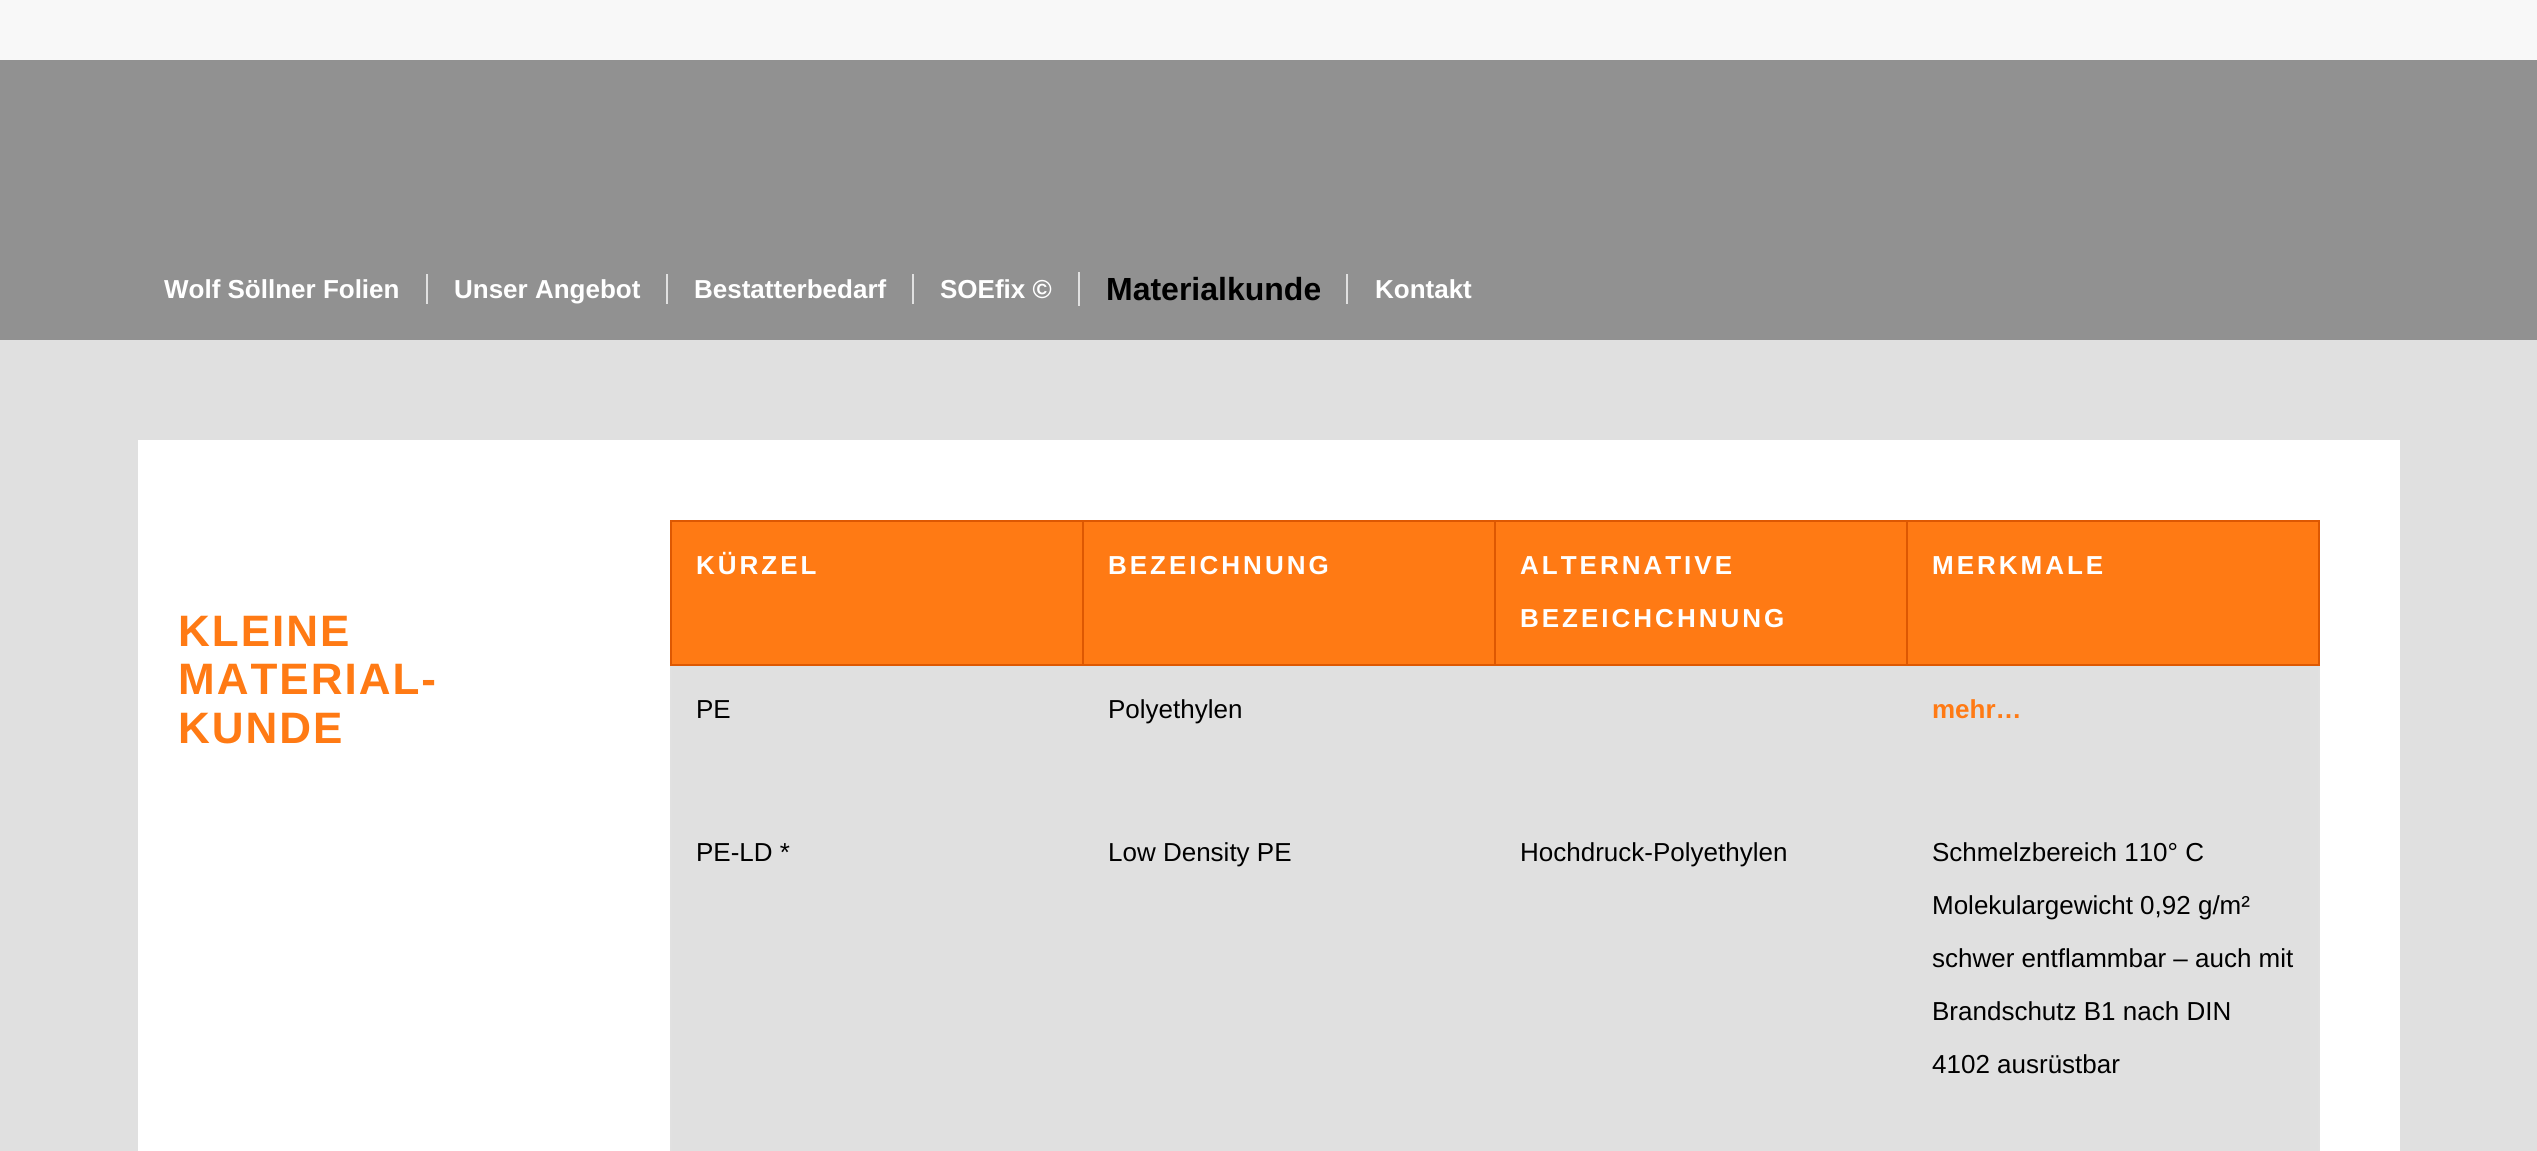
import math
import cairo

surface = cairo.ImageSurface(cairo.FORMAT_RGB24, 2537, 1151)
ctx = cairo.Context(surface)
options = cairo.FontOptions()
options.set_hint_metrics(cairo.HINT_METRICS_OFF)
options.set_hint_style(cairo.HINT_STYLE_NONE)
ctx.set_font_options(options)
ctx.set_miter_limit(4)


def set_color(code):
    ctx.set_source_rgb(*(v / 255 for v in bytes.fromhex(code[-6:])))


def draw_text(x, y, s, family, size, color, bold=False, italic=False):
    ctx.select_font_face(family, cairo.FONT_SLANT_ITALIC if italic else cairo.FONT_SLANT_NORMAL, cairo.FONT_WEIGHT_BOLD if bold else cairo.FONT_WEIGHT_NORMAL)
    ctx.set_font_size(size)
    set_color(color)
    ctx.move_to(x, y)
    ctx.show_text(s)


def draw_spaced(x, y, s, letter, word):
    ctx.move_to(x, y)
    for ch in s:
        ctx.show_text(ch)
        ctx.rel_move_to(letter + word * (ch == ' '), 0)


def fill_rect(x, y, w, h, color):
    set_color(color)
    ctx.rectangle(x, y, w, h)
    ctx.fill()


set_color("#e0e0e0")
ctx.paint()
fill_rect(0, 0, 2537, 60, "#f8f8f8")
fill_rect(0, 60, 2537, 280, "#919191")
draw_text(164, 298, "Wolf Söllner Folien", "Liberation Sans", 26, "#ffffff", bold=True)
draw_text(454, 298, "Unser Angebot", "Liberation Sans", 26, "#ffffff", bold=True)
fill_rect(426, 274, 2, 30, "#e1e1e1")
draw_text(694, 298, "Bestatterbedarf", "Liberation Sans", 26, "#ffffff", bold=True)
fill_rect(666, 274, 2, 30, "#e1e1e1")
draw_text(940, 298, "SOEfix ©", "Liberation Sans", 26, "#ffffff", bold=True)
fill_rect(912, 274, 2, 30, "#e1e1e1")
draw_text(1106, 300, "Materialkunde", "Liberation Sans", 32, "#000000", bold=True)
fill_rect(1078, 272, 2, 34, "#e1e1e1")
draw_text(1375, 298, "Kontakt", "Liberation Sans", 26, "#ffffff", bold=True)
fill_rect(1346, 274, 2, 30, "#e1e1e1")
fill_rect(138, 440, 2262, 711, "#ffffff")
ctx.set_font_size(44)
set_color("#ff7a14")
draw_spaced(178, 646, "KLEINE", 2, 0)
draw_spaced(178, 694, "MATERIAL-", 2, 0)
draw_spaced(178, 743, "KUNDE", 2, 0)
fill_rect(672, 522, 410, 142, "#ff7a14")
fill_rect(670, 520, 1650, 2, "#dd5802")
fill_rect(2318, 664, 2, 487, "#e1e1e1")
fill_rect(2318, 520, 2, 146, "#dd5802")
fill_rect(1906, 664, 414, 2, "#dd5802")
fill_rect(1906, 520, 2, 146, "#dd5802")
fill_rect(1494, 664, 414, 2, "#dd5802")
fill_rect(1494, 520, 2, 146, "#dd5802")
fill_rect(1082, 664, 414, 2, "#dd5802")
fill_rect(1082, 520, 2, 146, "#dd5802")
fill_rect(670, 664, 2, 487, "#e1e1e1")
fill_rect(670, 664, 414, 2, "#dd5802")
fill_rect(670, 520, 2, 146, "#dd5802")
ctx.set_font_size(26)
set_color("#ffffff")
draw_spaced(696, 574, "KÜRZEL", 3, 0)
fill_rect(1084, 522, 410, 142, "#ff7a14")
set_color("#ffffff")
draw_spaced(1108, 574, "BEZEICHNUNG", 3, 0)
fill_rect(1496, 522, 410, 142, "#ff7a14")
set_color("#ffffff")
draw_spaced(1520, 574, "ALTERNATIVE", 3, 0)
draw_spaced(1520, 627, "BEZEICHCHNUNG", 3, 0)
fill_rect(1908, 522, 410, 142, "#ff7a14")
set_color("#ffffff")
draw_spaced(1932, 574, "MERKMALE", 3, 0)
fill_rect(672, 666, 1646, 142, "#e0e0e0")
draw_text(696, 718, "PE", "Liberation Sans", 26, "#000000")
draw_text(1108, 718, "Polyethylen", "Liberation Sans", 26, "#000000")
draw_text(1932, 718, "mehr…", "Liberation Sans", 26, "#ff7a14", bold=True)
fill_rect(672, 808, 1646, 343, "#e0e0e0")
draw_text(696, 861, "PE-LD *", "Liberation Sans", 26, "#000000")
draw_text(1108, 861, "Low Density PE", "Liberation Sans", 26, "#000000")
draw_text(1520, 861, "Hochdruck-Polyethylen", "Liberation Sans", 26, "#000000")
draw_text(1932, 861, "Schmelzbereich 110° C", "Liberation Sans", 26, "#000000")
draw_text(1932, 914, "Molekulargewicht 0,92 g/m²", "Liberation Sans", 26, "#000000")
draw_text(1932, 967, "schwer entflammbar – auch mit", "Liberation Sans", 26, "#000000")
draw_text(1932, 1020, "Brandschutz B1 nach DIN", "Liberation Sans", 26, "#000000")
draw_text(1932, 1073, "4102 ausrüstbar", "Liberation Sans", 26, "#000000")
surface.write_to_png("output.png")
